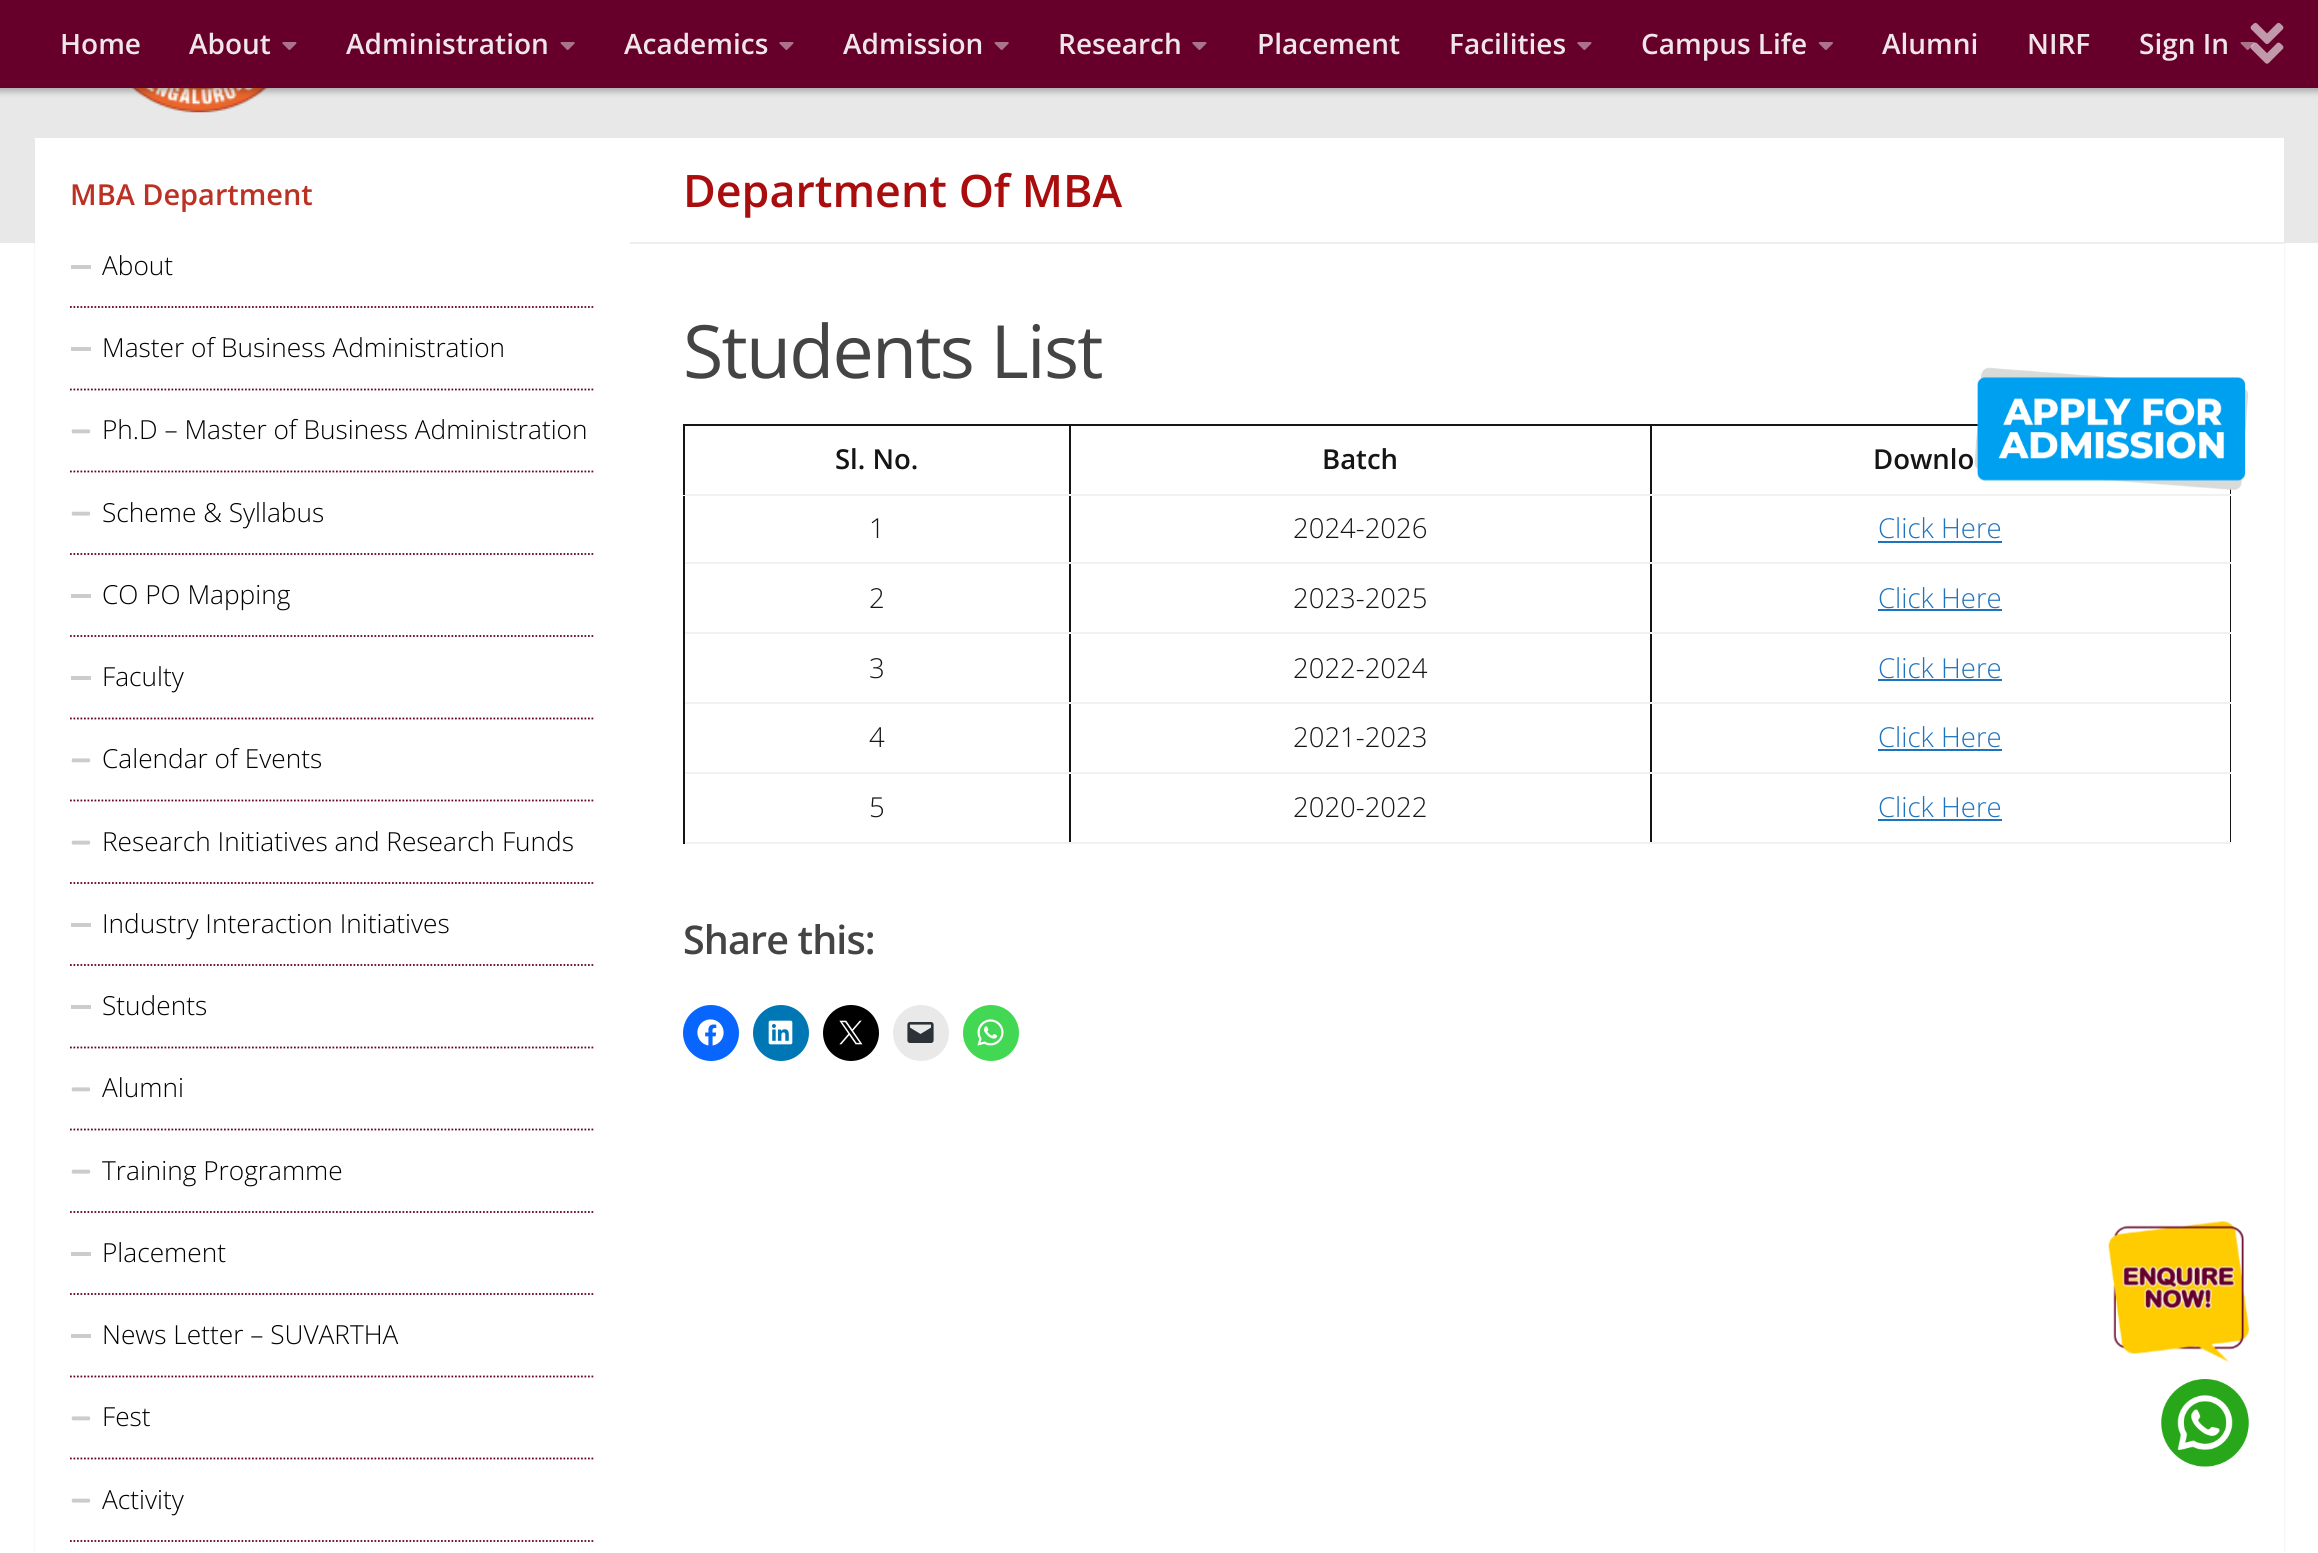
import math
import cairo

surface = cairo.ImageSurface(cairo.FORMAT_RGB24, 2318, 1553)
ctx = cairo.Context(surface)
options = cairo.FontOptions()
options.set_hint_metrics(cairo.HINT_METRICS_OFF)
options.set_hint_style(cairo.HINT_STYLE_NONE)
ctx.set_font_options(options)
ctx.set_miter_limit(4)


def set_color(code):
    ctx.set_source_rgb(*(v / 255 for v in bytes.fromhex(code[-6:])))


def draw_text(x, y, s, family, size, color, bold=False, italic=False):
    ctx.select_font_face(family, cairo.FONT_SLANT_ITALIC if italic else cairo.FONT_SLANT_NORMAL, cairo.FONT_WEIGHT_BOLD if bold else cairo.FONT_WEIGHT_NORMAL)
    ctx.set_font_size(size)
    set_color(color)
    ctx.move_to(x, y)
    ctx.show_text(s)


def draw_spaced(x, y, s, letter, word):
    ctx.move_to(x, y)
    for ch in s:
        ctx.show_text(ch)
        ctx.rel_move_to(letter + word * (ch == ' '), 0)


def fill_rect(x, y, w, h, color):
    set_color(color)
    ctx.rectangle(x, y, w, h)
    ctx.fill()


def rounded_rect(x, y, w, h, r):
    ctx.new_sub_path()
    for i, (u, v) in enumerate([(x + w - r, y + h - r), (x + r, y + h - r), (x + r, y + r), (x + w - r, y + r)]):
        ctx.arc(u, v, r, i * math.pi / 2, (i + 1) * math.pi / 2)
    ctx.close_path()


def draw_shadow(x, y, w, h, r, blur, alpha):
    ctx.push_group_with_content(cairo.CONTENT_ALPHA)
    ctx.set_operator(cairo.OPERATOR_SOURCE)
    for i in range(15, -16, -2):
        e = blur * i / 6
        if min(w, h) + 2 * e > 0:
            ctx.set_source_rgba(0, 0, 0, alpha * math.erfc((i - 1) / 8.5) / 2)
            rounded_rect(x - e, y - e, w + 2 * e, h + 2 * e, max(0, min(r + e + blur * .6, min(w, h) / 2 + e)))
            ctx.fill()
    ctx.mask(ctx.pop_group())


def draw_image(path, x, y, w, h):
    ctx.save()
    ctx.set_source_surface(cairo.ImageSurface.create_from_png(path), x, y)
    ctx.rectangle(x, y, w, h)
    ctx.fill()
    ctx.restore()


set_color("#ffffff")
ctx.paint()
set_color("#000000")
draw_shadow(35, 140, 2249, 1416, 0, 1, 0.1)
fill_rect(0, 88, 2318, 155, "#e8e8e8")
draw_image("assets/img5.png", 131, 88, 137, 25)
set_color("#000000")
draw_shadow(-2, 0, 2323, 91, 0, 3.5, 0.3)
fill_rect(0, 0, 2318, 88, "#66002a")
draw_text(60, 54, "Home", "Open Sans SemiBold", 28, "#f0e6ea")
draw_text(189, 54, "About", "Open Sans SemiBold", 28, "#f0e6ea")
draw_image("assets/img1.png", 282, 42, 15, 8)
draw_text(346, 54, "Administration", "Open Sans SemiBold", 28, "#f0e6ea")
draw_image("assets/img2.png", 560, 42, 15, 8)
draw_text(624, 54, "Academics", "Open Sans SemiBold", 28, "#f0e6ea")
draw_image("assets/img1.png", 779, 42, 15, 8)
draw_text(843, 54, "Admission", "Open Sans SemiBold", 28, "#f0e6ea")
draw_image("assets/img2.png", 994, 42, 15, 8)
draw_text(1058, 54, "Research", "Open Sans SemiBold", 28, "#f0e6ea")
draw_image("assets/img1.png", 1192, 42, 15, 8)
draw_text(1257, 54, "Placement", "Open Sans SemiBold", 28, "#f0e6ea")
draw_text(1449, 54, "Facilities", "Open Sans SemiBold", 28, "#f0e6ea")
draw_image("assets/img1.png", 1577, 42, 15, 8)
draw_text(1641, 54, "Campus Life", "Open Sans SemiBold", 28, "#f0e6ea")
draw_image("assets/img3.png", 1818, 42, 15, 8)
draw_text(1882, 54, "Alumni", "Open Sans SemiBold", 28, "#f0e6ea")
draw_text(2027, 54, "NIRF", "Open Sans SemiBold", 28, "#f0e6ea")
draw_text(2139, 54, "Sign In", "Open Sans SemiBold", 28, "#f0e6ea")
draw_image("assets/img2.png", 2240, 42, 15, 8)
draw_image("assets/img4.png", 2250, 22, 34, 42)
fill_rect(35, 138, 2249, 1415, "#ffffff")
draw_text(70, 205, "MBA Department", "Open Sans SemiBold", 28.9, "#bb3225")
ctx.new_path()
ctx.move_to(70, 307)
ctx.line_to(595, 307)
set_color("#66002a")
ctx.set_line_width(1.8)
ctx.set_dash([1.75, 1.75])
ctx.stroke()
fill_rect(71, 265, 20, 4, "#cccccc")
draw_text(102, 275, "About", "Open Sans Light", 26.25, "#000000")
ctx.new_path()
ctx.move_to(70, 389.5)
ctx.line_to(595, 389.5)
set_color("#66002a")
ctx.stroke()
fill_rect(71, 347, 20, 4, "#cccccc")
draw_text(102, 357, "Master of Business Administration", "Open Sans Light", 26.25, "#000000")
ctx.new_path()
ctx.move_to(70, 471.5)
ctx.line_to(595, 471.5)
set_color("#66002a")
ctx.stroke()
draw_image("assets/img6.png", 71, 429, 20, 5)
draw_text(102, 439, "Ph.D – Master of Business Administration", "Open Sans Light", 26.25, "#000000")
ctx.new_path()
ctx.move_to(70, 554)
ctx.line_to(595, 554)
set_color("#66002a")
ctx.stroke()
draw_image("assets/img7.png", 71, 511, 20, 5)
draw_text(102, 522, "Scheme & Syllabus", "Open Sans Light", 26.25, "#000000")
ctx.new_path()
ctx.move_to(70, 636)
ctx.line_to(595, 636)
set_color("#66002a")
ctx.stroke()
fill_rect(71, 594, 20, 4, "#cccccc")
draw_text(102, 604, "CO PO Mapping", "Open Sans Light", 26.25, "#000000")
ctx.new_path()
ctx.move_to(70, 718.5)
ctx.line_to(595, 718.5)
set_color("#66002a")
ctx.stroke()
fill_rect(71, 676, 20, 4, "#cccccc")
draw_text(102, 686, "Faculty", "Open Sans Light", 26.25, "#000000")
ctx.new_path()
ctx.move_to(70, 800.5)
ctx.line_to(595, 800.5)
set_color("#66002a")
ctx.stroke()
draw_image("assets/img6.png", 71, 758, 20, 5)
draw_text(102, 768, "Calendar of Events", "Open Sans Light", 26.25, "#000000")
ctx.new_path()
ctx.move_to(70, 883)
ctx.line_to(595, 883)
set_color("#66002a")
ctx.stroke()
draw_image("assets/img7.png", 71, 840, 20, 5)
draw_text(102, 851, "Research Initiatives and Research Funds", "Open Sans Light", 26.25, "#000000")
ctx.new_path()
ctx.move_to(70, 965)
ctx.line_to(595, 965)
set_color("#66002a")
ctx.stroke()
fill_rect(71, 923, 20, 4, "#cccccc")
draw_text(102, 933, "Industry Interaction Initiatives", "Open Sans Light", 26.25, "#000000")
ctx.new_path()
ctx.move_to(70, 1047.5)
ctx.line_to(595, 1047.5)
set_color("#66002a")
ctx.stroke()
fill_rect(71, 1005, 20, 4, "#cccccc")
draw_text(102, 1015, "Students", "Open Sans Light", 26.25, "#000000")
ctx.new_path()
ctx.move_to(70, 1129.5)
ctx.line_to(595, 1129.5)
set_color("#66002a")
ctx.stroke()
draw_image("assets/img6.png", 71, 1087, 20, 5)
draw_text(102, 1097, "Alumni", "Open Sans Light", 26.25, "#000000")
ctx.new_path()
ctx.move_to(70, 1212)
ctx.line_to(595, 1212)
set_color("#66002a")
ctx.stroke()
draw_image("assets/img7.png", 71, 1169, 20, 5)
draw_text(102, 1180, "Training Programme", "Open Sans Light", 26.25, "#000000")
ctx.new_path()
ctx.move_to(70, 1294)
ctx.line_to(595, 1294)
set_color("#66002a")
ctx.stroke()
fill_rect(71, 1252, 20, 4, "#cccccc")
draw_text(102, 1262, "Placement", "Open Sans Light", 26.25, "#000000")
ctx.new_path()
ctx.move_to(70, 1376.5)
ctx.line_to(595, 1376.5)
set_color("#66002a")
ctx.stroke()
fill_rect(71, 1334, 20, 4, "#cccccc")
draw_text(102, 1344, "News Letter – SUVARTHA", "Open Sans Light", 26.25, "#000000")
ctx.new_path()
ctx.move_to(70, 1458.5)
ctx.line_to(595, 1458.5)
set_color("#66002a")
ctx.stroke()
draw_image("assets/img6.png", 71, 1416, 20, 5)
draw_text(102, 1426, "Fest", "Open Sans Light", 26.25, "#000000")
ctx.new_path()
ctx.move_to(70, 1541)
ctx.line_to(595, 1541)
set_color("#66002a")
ctx.stroke()
draw_image("assets/img7.png", 71, 1498, 20, 5)
draw_text(102, 1509, "Activity", "Open Sans Light", 26.25, "#000000")
fill_rect(630, 242, 1654, 2, "#eeeeee")
draw_text(683, 207, "Department Of MBA", "Open Sans SemiBold", 44.75, "#aa0d0d")
ctx.select_font_face("Open Sans")
ctx.set_font_size(73.5)
set_color("#444444")
draw_spaced(683, 378, "Students List", -1.75, 0)
fill_rect(1650, 424, 328, 2, "#151515")
fill_rect(2230, 489, 1, 355, "#151515")
fill_rect(1650, 842, 581, 2, "#f1f1f1")
fill_rect(1650, 772, 2, 72, "#151515")
fill_rect(1650, 772, 581, 2, "#f1f1f1")
fill_rect(1650, 702, 2, 72, "#151515")
fill_rect(1650, 702, 581, 2, "#f1f1f1")
fill_rect(1650, 632, 2, 72, "#151515")
fill_rect(1650, 632, 581, 2, "#f1f1f1")
fill_rect(1650, 562, 2, 72, "#151515")
fill_rect(1650, 562, 581, 2, "#f1f1f1")
fill_rect(1650, 494, 2, 70, "#151515")
fill_rect(1650, 494, 581, 2, "#f1f1f1")
fill_rect(1650, 424, 2, 71, "#151515")
fill_rect(1069, 424, 583, 2, "#151515")
fill_rect(1069, 842, 583, 2, "#f1f1f1")
fill_rect(1069, 772, 2, 72, "#151515")
fill_rect(1069, 772, 583, 2, "#f1f1f1")
fill_rect(1069, 702, 2, 72, "#151515")
fill_rect(1069, 702, 583, 2, "#f1f1f1")
fill_rect(1069, 632, 2, 72, "#151515")
fill_rect(1069, 632, 583, 2, "#f1f1f1")
fill_rect(1069, 562, 2, 72, "#151515")
fill_rect(1069, 562, 583, 2, "#f1f1f1")
fill_rect(1069, 494, 2, 70, "#151515")
fill_rect(1069, 494, 583, 2, "#f1f1f1")
fill_rect(1069, 424, 2, 71, "#151515")
fill_rect(683, 424, 388, 2, "#151515")
fill_rect(683, 842, 388, 2, "#f1f1f1")
fill_rect(683, 772, 2, 72, "#151515")
fill_rect(683, 772, 388, 2, "#f1f1f1")
fill_rect(683, 702, 2, 72, "#151515")
fill_rect(683, 702, 388, 2, "#f1f1f1")
fill_rect(683, 632, 2, 72, "#151515")
fill_rect(683, 632, 388, 2, "#f1f1f1")
fill_rect(683, 562, 2, 72, "#151515")
fill_rect(683, 562, 388, 2, "#f1f1f1")
fill_rect(683, 494, 2, 70, "#151515")
fill_rect(683, 494, 388, 2, "#f1f1f1")
fill_rect(683, 424, 2, 71, "#151515")
draw_text(835, 469, "Sl. No.", "Open Sans SemiBold", 27.5, "#151515")
draw_text(1322, 469, "Batch", "Open Sans SemiBold", 27.5, "#151515")
draw_text(1873, 469, "Downlo", "Open Sans SemiBold", 27.5, "#151515")
draw_text(869, 538, "1", "Open Sans Light", 27.5, "#151515")
draw_text(1293, 538, "2024-2026", "Open Sans Light", 27.5, "#151515")
draw_text(1878, 538, "Click Here", "Open Sans Light", 27.5, "#1e73be")
fill_rect(1878, 541, 124, 2, "#1e73be")
draw_text(869, 608, "2", "Open Sans Light", 27.5, "#151515")
draw_text(1293, 608, "2023-2025", "Open Sans Light", 27.5, "#151515")
draw_text(1878, 608, "Click Here", "Open Sans Light", 27.5, "#1e73be")
fill_rect(1878, 609, 124, 2, "#1e73be")
draw_text(869, 678, "3", "Open Sans Light", 27.5, "#151515")
draw_text(1293, 678, "2022-2024", "Open Sans Light", 27.5, "#151515")
draw_text(1878, 678, "Click Here", "Open Sans Light", 27.5, "#1e73be")
fill_rect(1878, 679, 124, 2, "#1e73be")
draw_text(869, 747, "4", "Open Sans Light", 27.5, "#151515")
draw_text(1293, 747, "2021-2023", "Open Sans Light", 27.5, "#151515")
draw_text(1878, 747, "Click Here", "Open Sans Light", 27.5, "#1e73be")
fill_rect(1878, 749, 124, 2, "#1e73be")
draw_text(869, 817, "5", "Open Sans Light", 27.5, "#151515")
draw_text(1293, 817, "2020-2022", "Open Sans Light", 27.5, "#151515")
draw_text(1878, 817, "Click Here", "Open Sans Light", 27.5, "#1e73be")
fill_rect(1878, 819, 124, 2, "#1e73be")
ctx.select_font_face("Open Sans SemiBold")
ctx.set_font_size(39.5)
set_color("#444444")
draw_spaced(683, 954, "Share this:", -0.9, 0)
set_color("#0866ff")
ctx.new_path()
ctx.arc(711, 1033, 28, 0, 2 * math.pi)
ctx.fill()
draw_image("assets/img8.png", 697, 1019, 27, 27)
set_color("#0077b5")
ctx.arc(781, 1033, 28, 0, 2 * math.pi)
ctx.fill()
draw_image("assets/img9.png", 768, 1020, 25, 25)
set_color("#000000")
ctx.arc(851, 1033, 28, 0, 2 * math.pi)
ctx.fill()
draw_image("assets/img10.png", 839, 1020, 24, 25)
set_color("#e9e9e9")
ctx.arc(921, 1033, 28, 0, 2 * math.pi)
ctx.fill()
draw_image("assets/img11.png", 907, 1022, 27, 21)
set_color("#43d854")
ctx.arc(991, 1033, 28, 0, 2 * math.pi)
ctx.fill()
draw_image("assets/img12.png", 977, 1019, 27, 27)
draw_image("assets/img13.png", 1974, 367, 275, 123)
draw_image("assets/img14.png", 2108, 1221, 141, 141)
draw_image("assets/img15.png", 2161, 1379, 88, 88)
surface.write_to_png("output.png")
